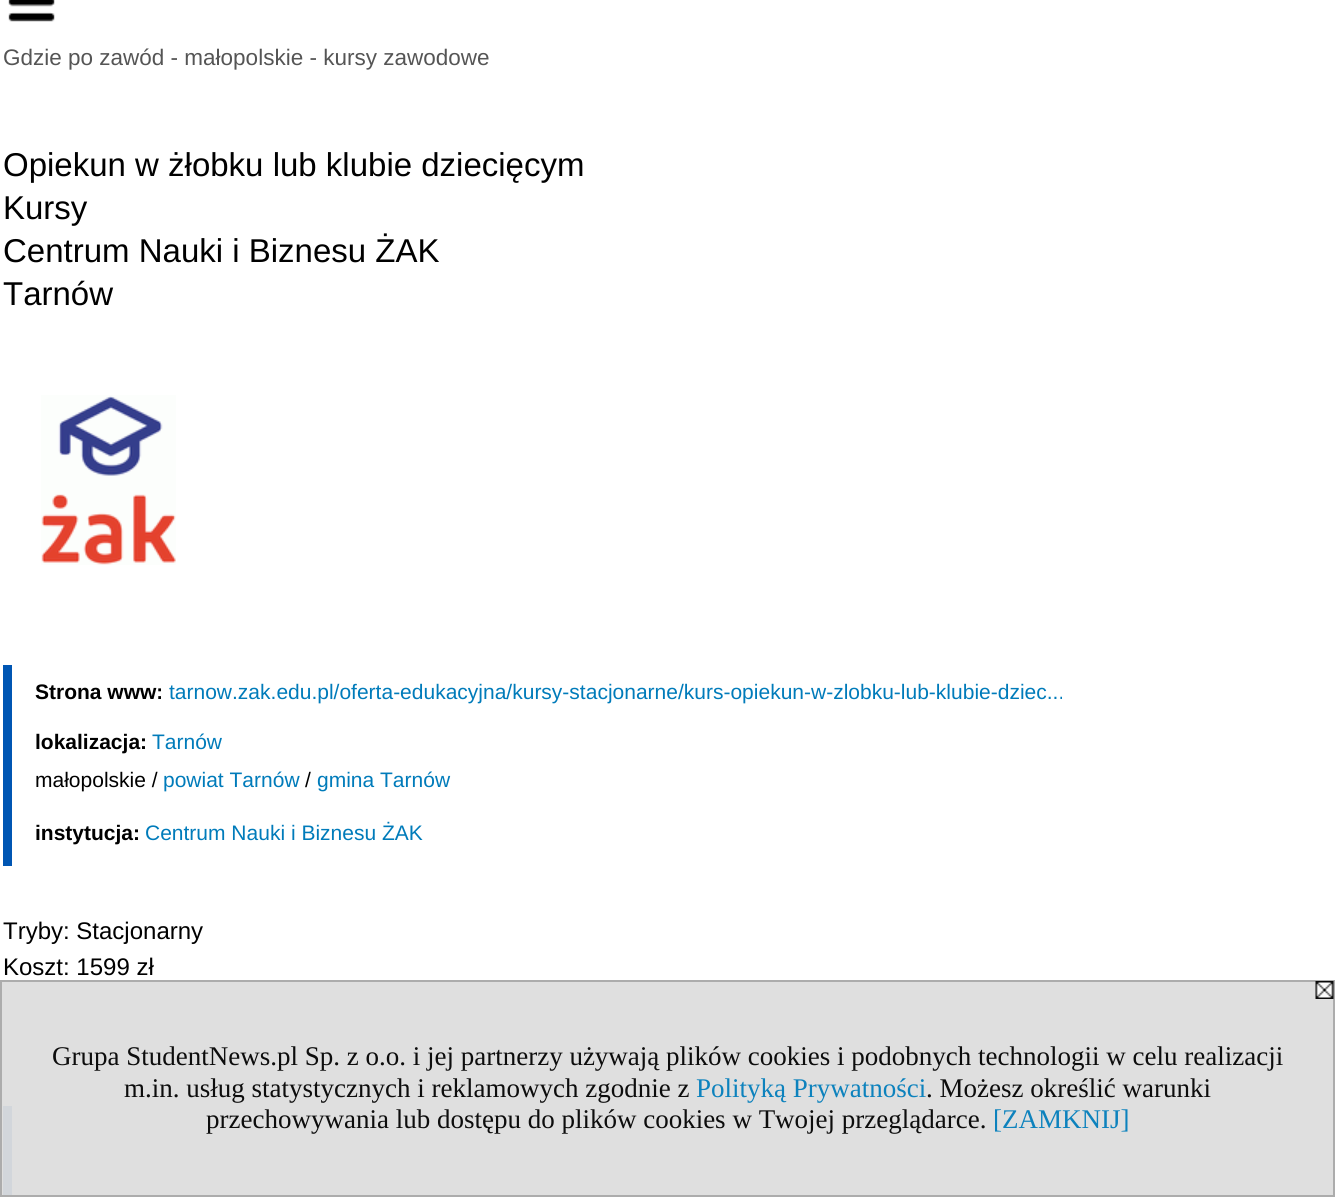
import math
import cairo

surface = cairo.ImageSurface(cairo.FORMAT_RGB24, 1335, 1197)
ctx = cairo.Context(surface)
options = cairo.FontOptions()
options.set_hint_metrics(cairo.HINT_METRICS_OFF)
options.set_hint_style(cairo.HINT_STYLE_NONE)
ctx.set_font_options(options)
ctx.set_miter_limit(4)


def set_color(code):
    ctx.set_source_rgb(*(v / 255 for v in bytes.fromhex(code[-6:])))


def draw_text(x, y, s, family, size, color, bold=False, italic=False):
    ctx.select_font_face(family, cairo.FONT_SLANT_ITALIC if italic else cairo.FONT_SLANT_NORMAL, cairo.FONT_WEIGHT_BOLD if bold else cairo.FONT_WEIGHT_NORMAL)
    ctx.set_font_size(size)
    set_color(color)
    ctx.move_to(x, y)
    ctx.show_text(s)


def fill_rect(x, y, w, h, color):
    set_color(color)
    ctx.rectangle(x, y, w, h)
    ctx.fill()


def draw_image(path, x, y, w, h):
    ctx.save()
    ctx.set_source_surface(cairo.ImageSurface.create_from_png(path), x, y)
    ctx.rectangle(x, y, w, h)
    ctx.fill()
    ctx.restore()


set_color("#ffffff")
ctx.paint()
fill_rect(0, 980, 1335, 217, "#dfdfdf")
draw_image("assets/img1.png", 8, 0, 47, 22)
draw_text(3, 65, "Gdzie po zawód - małopolskie - kursy zawodowe", "Liberation Sans", 22.5, "#555555")
draw_text(3, 176, "Opiekun w żłobku lub klubie dziecięcym", "Liberation Sans", 33, "#000000")
draw_text(3, 219, "Kursy", "Liberation Sans", 33, "#000000")
draw_text(3, 262, "Centrum Nauki i Biznesu ŻAK", "Liberation Sans", 33, "#000000")
draw_text(3, 305, "Tarnów", "Liberation Sans", 33, "#000000")
draw_image("assets/img2.png", 41, 395, 135, 170)
fill_rect(3, 665, 9, 201, "#0056b3")
draw_text(35, 699, "Strona www:", "Liberation Sans", 21, "#000000", bold=True)
draw_text(169, 699, "tarnow.zak.edu.pl/oferta-edukacyjna/kursy-stacjonarne/kurs-opiekun-w-zlobku-lub-klubie-dziec...", "Liberation Sans", 21, "#007bba")
draw_text(35, 749, "lokalizacja:", "Liberation Sans", 21, "#000000", bold=True)
draw_text(152, 749, "Tarnów", "Liberation Sans", 21, "#007bba")
draw_text(35, 787, "małopolskie /", "Liberation Sans", 21, "#000000")
draw_text(163, 787, "powiat Tarnów", "Liberation Sans", 21, "#007bba")
draw_text(305, 787, "/", "Liberation Sans", 21, "#000000")
draw_text(317, 787, "gmina Tarnów", "Liberation Sans", 21, "#007bba")
draw_text(35, 840, "instytucja:", "Liberation Sans", 21, "#000000", bold=True)
draw_text(145, 840, "Centrum Nauki i Biznesu ŻAK", "Liberation Sans", 21, "#007bba")
draw_text(3, 939, "Tryby: Stacjonarny", "Liberation Sans", 24, "#000000")
draw_text(3, 975, "Koszt: 1599 zł", "Liberation Sans", 24, "#000000")
fill_rect(3, 1106, 9, 90, "#d2d6db")
ctx.rectangle(1, 981, 1333, 215)
ctx.set_source_rgba(0.667, 0.667, 0.667, 0.95)
ctx.stroke()
draw_image("assets/img3.png", 1315, 981, 19, 18)
draw_text(52, 1065, "Grupa StudentNews.pl Sp. z o.o. i jej partnerzy używają plików cookies i podobnych technologii w celu realizacji", "Liberation Serif", 27, "#0d0d0d")
draw_text(124, 1097, "m.in. usług statystycznych i reklamowych zgodnie z", "Liberation Serif", 27, "#0d0d0d")
draw_text(696, 1097, "Polityką Prywatności", "Liberation Serif", 27, "#0d82bd")
draw_text(926, 1097, ". Możesz określić warunki", "Liberation Serif", 27, "#0d0d0d")
draw_text(206, 1128, "przechowywania lub dostępu do plików cookies w Twojej przeglądarce.", "Liberation Serif", 27, "#0d0d0d")
draw_text(993, 1128, "[ZAMKNIJ]", "Liberation Serif", 27, "#0d82bd")
surface.write_to_png("output.png")
